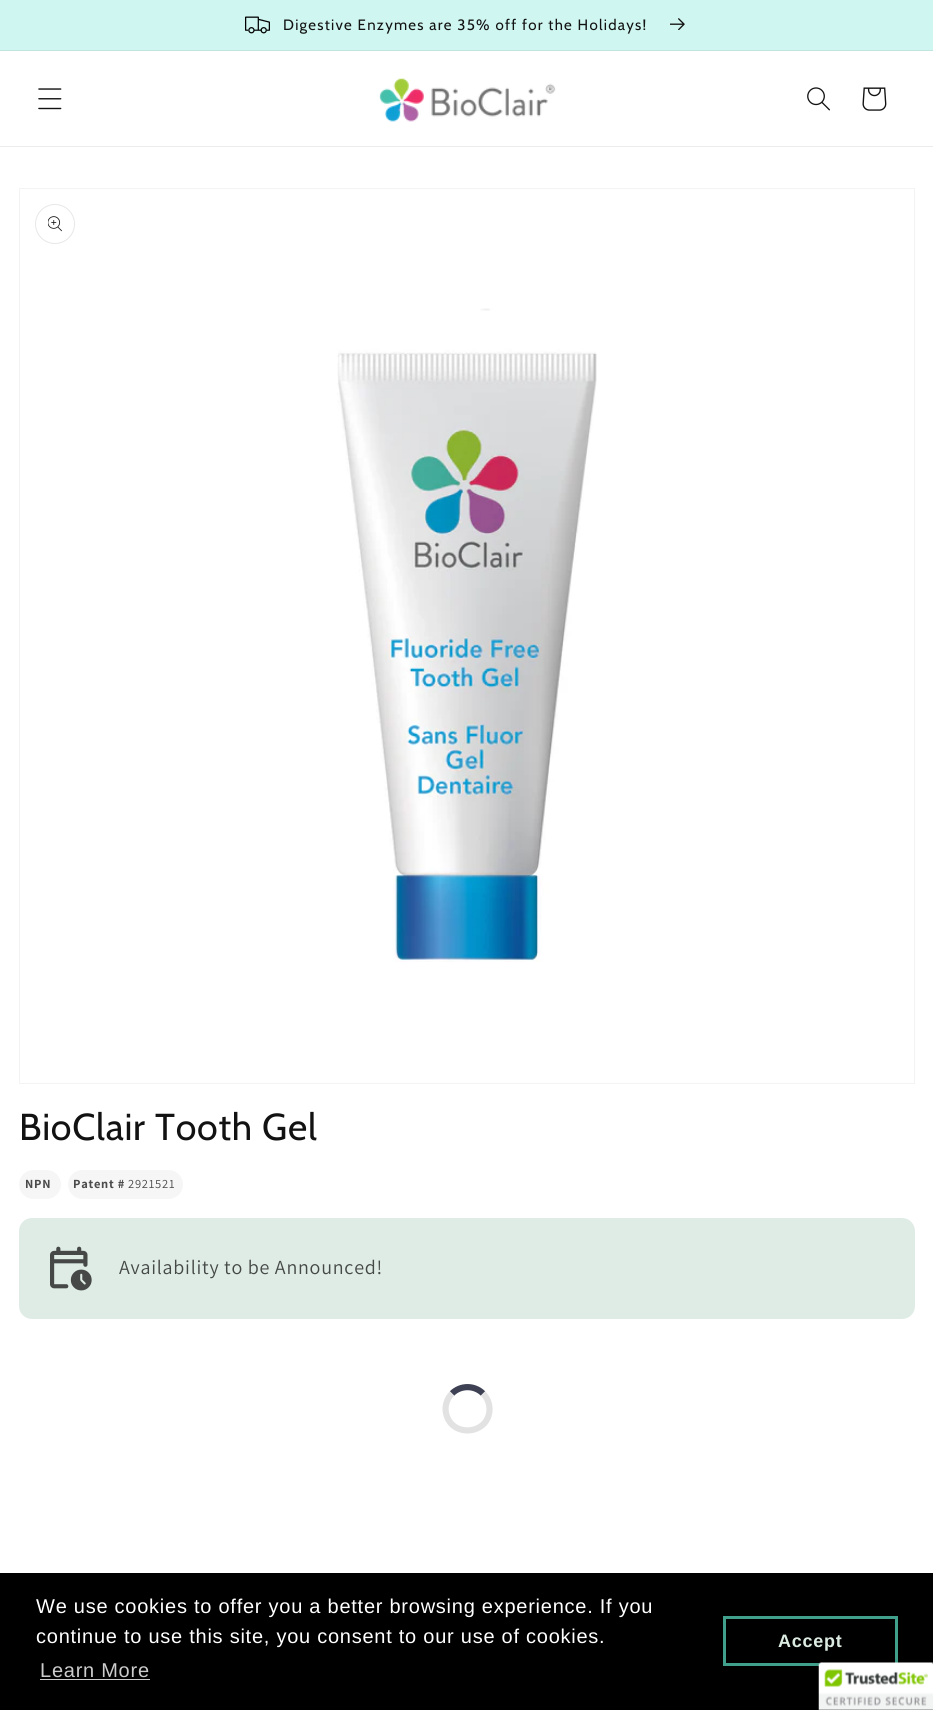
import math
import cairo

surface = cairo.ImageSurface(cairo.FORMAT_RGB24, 933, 1710)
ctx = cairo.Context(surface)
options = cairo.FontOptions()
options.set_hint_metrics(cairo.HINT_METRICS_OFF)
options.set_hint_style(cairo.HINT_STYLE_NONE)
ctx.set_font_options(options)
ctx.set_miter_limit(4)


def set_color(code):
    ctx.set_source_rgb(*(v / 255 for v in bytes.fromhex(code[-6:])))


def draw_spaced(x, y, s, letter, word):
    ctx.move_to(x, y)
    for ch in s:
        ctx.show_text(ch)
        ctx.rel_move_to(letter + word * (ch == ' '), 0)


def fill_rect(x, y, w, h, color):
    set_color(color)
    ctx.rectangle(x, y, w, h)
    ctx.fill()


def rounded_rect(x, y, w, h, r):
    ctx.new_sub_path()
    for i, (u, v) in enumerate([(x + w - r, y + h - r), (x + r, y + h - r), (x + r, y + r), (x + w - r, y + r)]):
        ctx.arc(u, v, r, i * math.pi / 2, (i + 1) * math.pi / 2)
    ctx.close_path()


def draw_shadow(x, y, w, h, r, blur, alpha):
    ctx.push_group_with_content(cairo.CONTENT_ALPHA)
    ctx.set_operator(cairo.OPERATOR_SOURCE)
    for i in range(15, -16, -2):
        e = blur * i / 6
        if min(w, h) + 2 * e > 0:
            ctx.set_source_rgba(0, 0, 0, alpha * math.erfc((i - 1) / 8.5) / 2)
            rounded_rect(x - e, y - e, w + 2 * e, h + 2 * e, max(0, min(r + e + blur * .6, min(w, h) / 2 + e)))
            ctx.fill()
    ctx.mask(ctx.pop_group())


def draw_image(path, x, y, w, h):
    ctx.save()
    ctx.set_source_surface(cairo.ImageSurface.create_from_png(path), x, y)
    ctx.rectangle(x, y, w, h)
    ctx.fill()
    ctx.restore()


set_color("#ffffff")
ctx.paint()
fill_rect(0, 0, 933, 50, "#cff6f0")
fill_rect(0, 50, 933, 1, "#c0e4de")
draw_image("assets/img1.png", 245, 16, 25, 18)
ctx.select_font_face("Cabin")
ctx.set_font_size(15)
set_color("#121212")
draw_spaced(283, 30, "Digestive Enzymes are 35% off for the Holidays!", 1.25, 0)
draw_image("assets/img2.png", 670, 18, 15, 12)
fill_rect(0, 146, 933, 1, "#ececec")
draw_image("assets/img3.png", 38, 88, 24, 22)
draw_image("assets/img4.png", 379, 78, 177, 44)
draw_image("assets/img5.png", 807, 87, 23, 24)
draw_image("assets/img6.png", 862, 87, 25, 24)
ctx.rectangle(19.5, 188.5, 895, 895)
set_color("#f3f3f3")
ctx.set_line_width(1)
ctx.stroke()
ctx.arc(55, 224, 19.5, 0, 2 * math.pi)
set_color("#e7e7e7")
ctx.stroke()
draw_image("assets/img7.png", 48, 216, 14, 16)
draw_image("assets/img8.png", 337, 308, 260, 654)
ctx.set_font_size(37.5)
set_color("#121212")
draw_spaced(19, 1140, "BioClair Tooth Gel", 0.75, 0)
set_color("#f6f6f6")
rounded_rect(19, 1170, 42, 29, 14.5)
ctx.fill()
ctx.select_font_face("Assistant", cairo.FONT_SLANT_NORMAL, cairo.FONT_WEIGHT_BOLD)
ctx.set_font_size(12.5)
set_color("#4b4b4b")
draw_spaced(25, 1188, "NPN", 0.75, 0)
set_color("#f6f6f6")
rounded_rect(68, 1170, 115, 29, 14.5)
ctx.fill()
set_color("#4b4b4b")
draw_spaced(73, 1188, "Patent #", 0.75, 0)
ctx.select_font_face("Assistant")
draw_spaced(128, 1188, "2921521", 0.75, 0)
set_color("#dfece5")
rounded_rect(19, 1218, 896, 101, 13)
ctx.fill()
draw_image("assets/img9.png", 50, 1246, 42, 45)
ctx.set_font_size(20)
set_color("#454947")
draw_spaced(119, 1274, "Availability to be Announced!", 0.75, 0)
ctx.new_path()
ctx.move_to(452, 1393.5)
ctx.curve_to(460.5, 1385, 474.5, 1385, 483, 1393.5)
set_color("#3d4153")
ctx.set_line_width(6.2)
ctx.stroke()
ctx.new_path()
ctx.move_to(483, 1393.5)
ctx.curve_to(487, 1397.5, 489.5, 1403, 489.5, 1409)
ctx.curve_to(489.5, 1435, 451, 1438.5, 446, 1413)
ctx.curve_to(444.5, 1406, 447, 1398.5, 452, 1393.5)
set_color("#e2e2e2")
ctx.stroke()
fill_rect(0, 1573, 933, 137, "#000000")
ctx.select_font_face("Liberation Sans")
set_color("#ffffff")
draw_spaced(36, 1613, "We use cookies to offer you a better browsing experience. If you", 0.75, 0)
draw_spaced(36, 1643, "continue to use this site, you consent to our use of cookies.", 0.75, 0)
set_color("#cccccc")
draw_spaced(40, 1677, "Learn More", 0.75, 0)
fill_rect(40, 1679, 110, 1, "#cccccc")
ctx.rectangle(724.5, 1617.5, 172, 47)
set_color("#41a08c")
ctx.set_line_width(3)
ctx.stroke()
ctx.select_font_face("Liberation Sans", cairo.FONT_SLANT_NORMAL, cairo.FONT_WEIGHT_BOLD)
ctx.set_font_size(18)
set_color("#ddece2")
draw_spaced(778, 1647, "Accept", 0.75, 0)
set_color("#000000")
draw_shadow(819, 1663, 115, 47, 2.5, 3, 0.2)
draw_image("assets/img10.png", 818, 1662, 115, 48)
surface.write_to_png("output.png")
